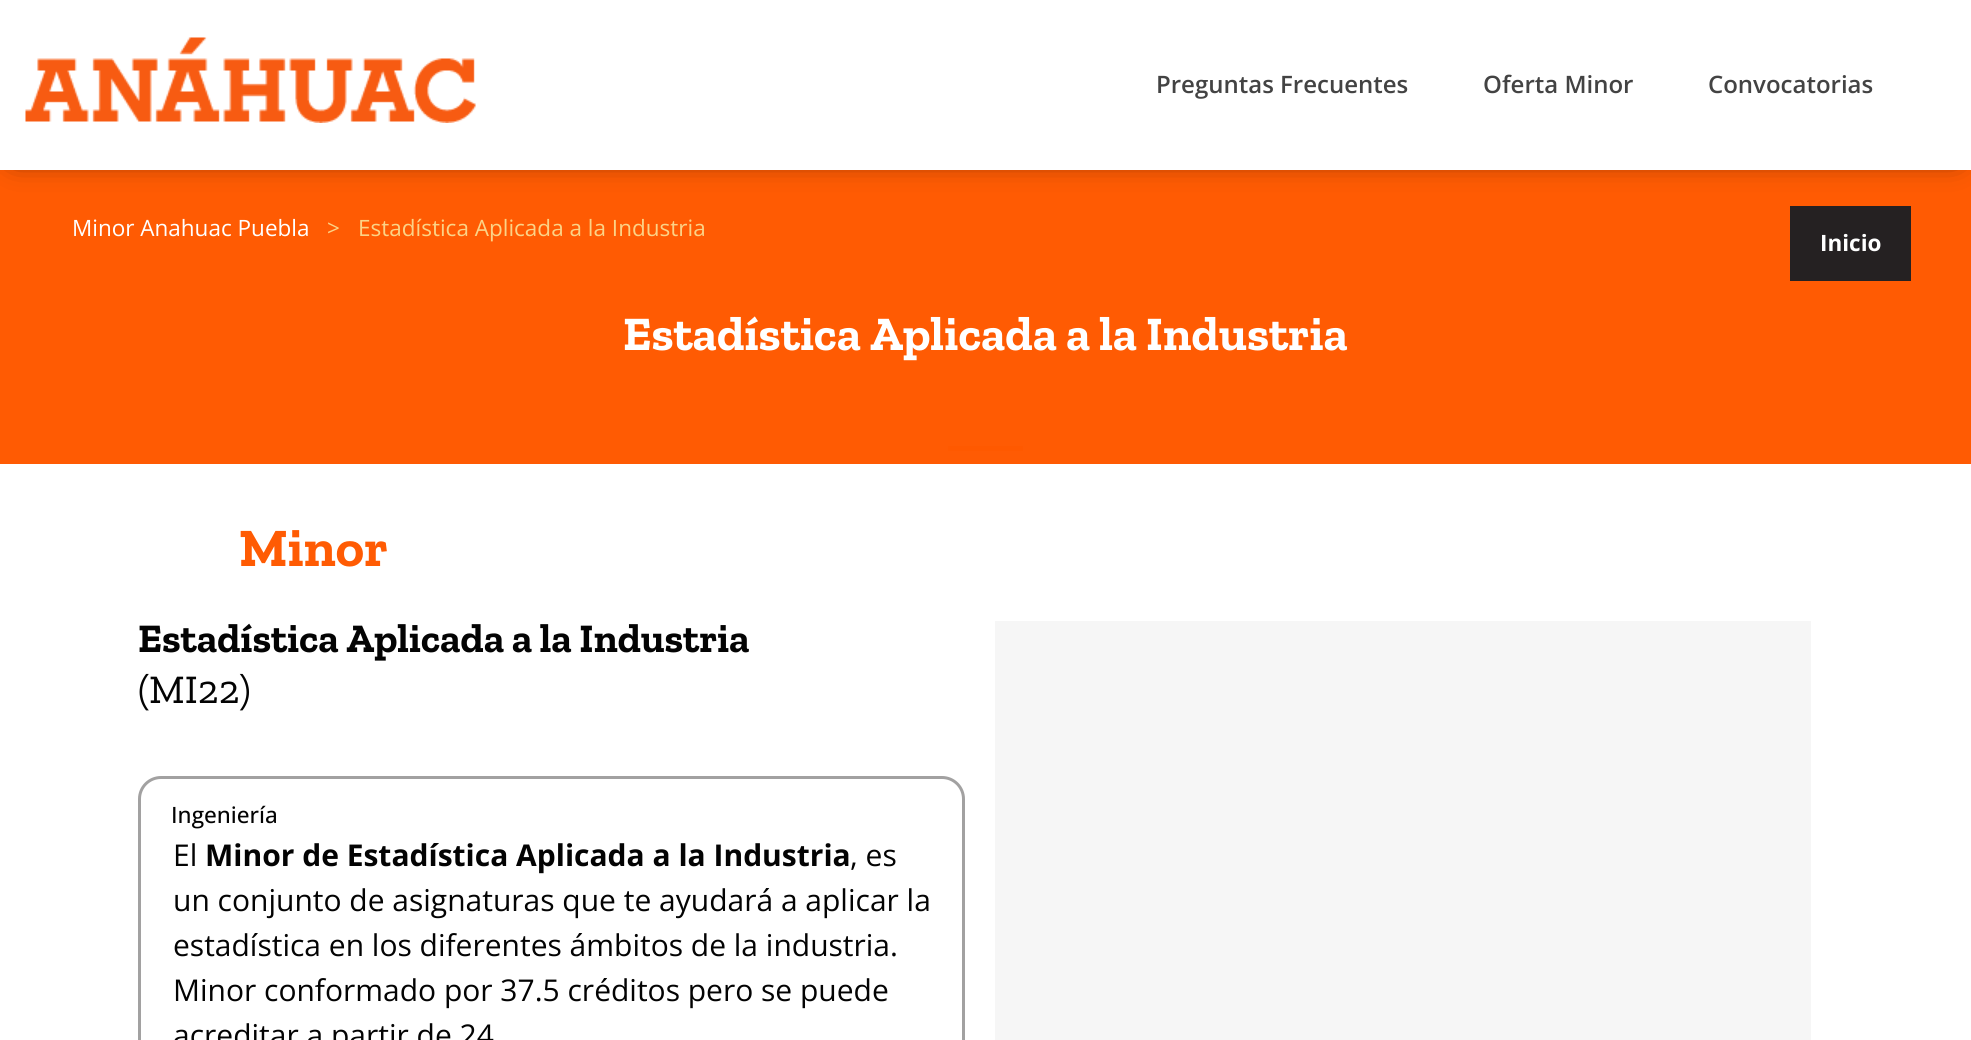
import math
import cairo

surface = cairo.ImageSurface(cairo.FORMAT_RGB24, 1971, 1040)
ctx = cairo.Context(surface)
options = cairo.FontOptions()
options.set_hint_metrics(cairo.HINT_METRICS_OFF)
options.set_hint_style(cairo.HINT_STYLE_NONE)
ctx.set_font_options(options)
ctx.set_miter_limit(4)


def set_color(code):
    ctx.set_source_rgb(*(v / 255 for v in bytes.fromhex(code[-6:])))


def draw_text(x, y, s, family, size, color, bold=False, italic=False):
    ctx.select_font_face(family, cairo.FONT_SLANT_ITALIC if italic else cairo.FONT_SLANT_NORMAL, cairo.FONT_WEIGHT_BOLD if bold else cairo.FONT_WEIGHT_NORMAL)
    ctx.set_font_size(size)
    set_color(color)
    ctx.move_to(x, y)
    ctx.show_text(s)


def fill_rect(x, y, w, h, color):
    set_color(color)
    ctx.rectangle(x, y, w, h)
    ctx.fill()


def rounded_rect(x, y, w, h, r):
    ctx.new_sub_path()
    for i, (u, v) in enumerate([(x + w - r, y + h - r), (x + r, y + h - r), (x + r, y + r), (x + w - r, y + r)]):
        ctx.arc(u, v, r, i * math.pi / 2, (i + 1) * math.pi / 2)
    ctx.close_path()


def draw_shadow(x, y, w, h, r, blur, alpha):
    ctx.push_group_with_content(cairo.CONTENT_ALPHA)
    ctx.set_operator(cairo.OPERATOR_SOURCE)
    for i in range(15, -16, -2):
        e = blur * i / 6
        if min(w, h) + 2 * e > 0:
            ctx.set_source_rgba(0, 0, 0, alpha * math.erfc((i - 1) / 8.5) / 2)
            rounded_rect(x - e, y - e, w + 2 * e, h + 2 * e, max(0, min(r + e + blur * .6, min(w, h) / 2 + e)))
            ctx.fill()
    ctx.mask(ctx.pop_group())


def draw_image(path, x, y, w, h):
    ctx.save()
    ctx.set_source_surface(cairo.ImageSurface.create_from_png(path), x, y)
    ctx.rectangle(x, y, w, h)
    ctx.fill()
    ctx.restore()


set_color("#ffffff")
ctx.paint()
fill_rect(0, 170, 1971, 294, "#ff5b03")
ctx.save()
ctx.set_fill_rule(cairo.FILL_RULE_EVEN_ODD)
ctx.new_path()
ctx.move_to(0, 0)
ctx.line_to(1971, 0)
ctx.line_to(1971, 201)
ctx.line_to(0, 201)
ctx.close_path()
ctx.move_to(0, 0)
ctx.line_to(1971, 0)
ctx.line_to(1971, 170)
ctx.line_to(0, 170)
ctx.close_path()
ctx.clip()
set_color("#030303")
draw_shadow(15, 15, 1941, 140, 0, 15, 0.8)
ctx.restore()
draw_image("assets/img1.png", 25, 37, 451, 86)
draw_text(1156, 93, "Preguntas Frecuentes", "Open Sans SemiBold", 24, "#434343")
draw_text(1483, 93, "Oferta Minor", "Open Sans SemiBold", 24, "#434343")
draw_text(1708, 93, "Convocatorias", "Open Sans SemiBold", 24, "#434343")
draw_text(72, 236, "Minor Anahuac Puebla", "Open Sans", 22.5, "#ffffff")
draw_text(327, 236, ">", "Open Sans", 22.5, "#fbd387")
draw_text(358, 236, "Estadística Aplicada a la Industria", "Open Sans", 22.5, "#fbd387")
fill_rect(1790, 206, 121, 75, "#252122")
draw_text(1820, 251, "Inicio", "Open Sans", 22.5, "#ffffff", bold=True)
draw_text(623, 350, "Estadística Aplicada a la Industria", "Zilla Slab", 48, "#ffffff", bold=True)
draw_text(239, 566, "Minor", "Zilla Slab", 54, "#ff5b03", bold=True)
draw_text(138, 652, "Estadística Aplicada a la Industria", "Zilla Slab", 40.5, "#030303", bold=True)
draw_text(138, 703, "(MI22)", "Zilla Slab", 40.5, "#030303")
rounded_rect(139.5, 777.5, 824, 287, 21.5)
set_color("#a2a1a1")
ctx.set_line_width(3)
ctx.stroke()
draw_text(171, 823, "Ingeniería", "Open Sans Medium", 22.5, "#030303")
draw_text(173, 866, "El", "Open Sans", 30, "#030303")
draw_text(205, 866, "Minor de Estadística Aplicada a la Industria", "Open Sans", 30, "#030303", bold=True)
draw_text(850, 866, ", es", "Open Sans", 30, "#030303")
draw_text(173, 911, "un conjunto de asignaturas que te ayudará a aplicar la", "Open Sans", 30, "#030303")
draw_text(173, 956, "estadística en los diferentes ámbitos de la industria.", "Open Sans", 30, "#030303")
draw_text(173, 1001, "Minor conformado por 37.5 créditos pero se puede", "Open Sans", 30, "#030303")
draw_text(173, 1046, "acreditar a partir de 24", "Open Sans", 30, "#030303")
fill_rect(995, 621, 816, 419, "#f6f6f6")
fill_rect(948, 446, 75, 5, "#ff5900")
surface.write_to_png("output.png")
